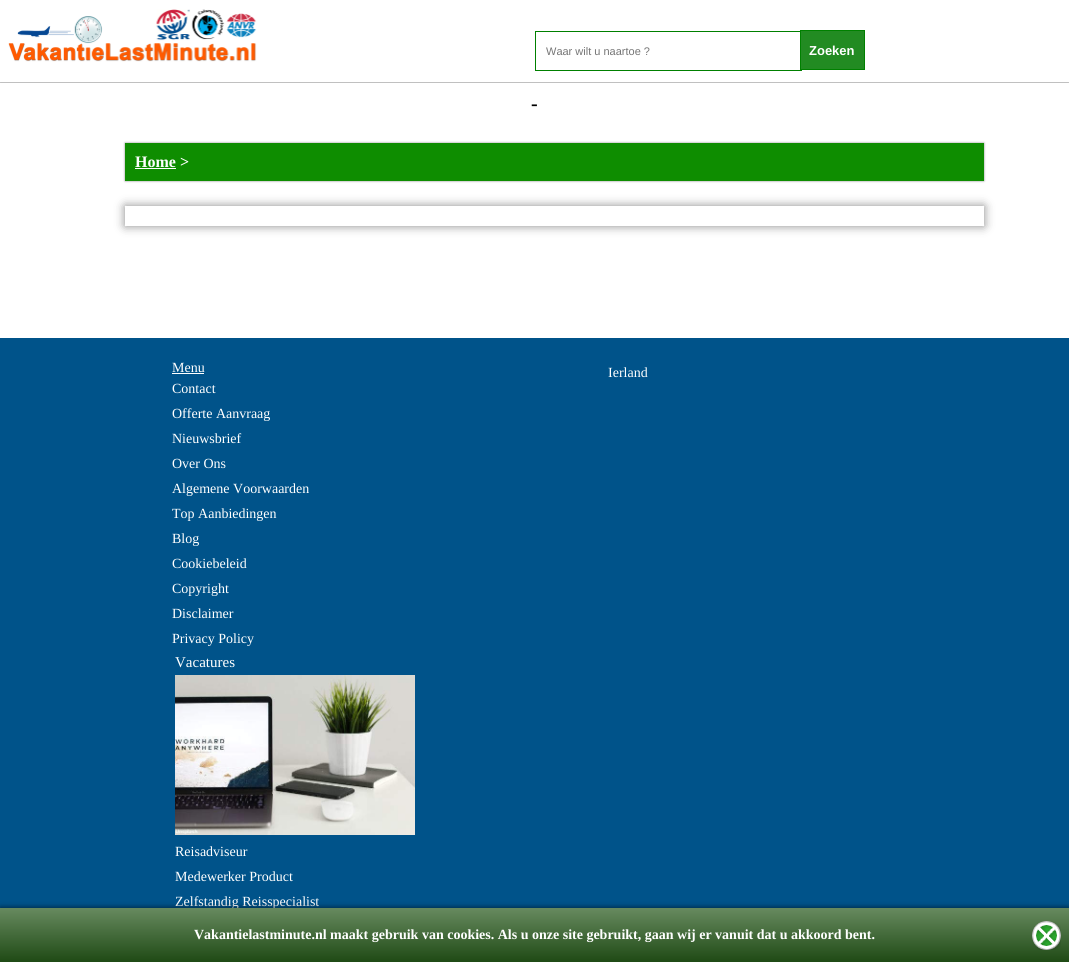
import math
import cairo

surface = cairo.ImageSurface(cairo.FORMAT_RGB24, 1069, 962)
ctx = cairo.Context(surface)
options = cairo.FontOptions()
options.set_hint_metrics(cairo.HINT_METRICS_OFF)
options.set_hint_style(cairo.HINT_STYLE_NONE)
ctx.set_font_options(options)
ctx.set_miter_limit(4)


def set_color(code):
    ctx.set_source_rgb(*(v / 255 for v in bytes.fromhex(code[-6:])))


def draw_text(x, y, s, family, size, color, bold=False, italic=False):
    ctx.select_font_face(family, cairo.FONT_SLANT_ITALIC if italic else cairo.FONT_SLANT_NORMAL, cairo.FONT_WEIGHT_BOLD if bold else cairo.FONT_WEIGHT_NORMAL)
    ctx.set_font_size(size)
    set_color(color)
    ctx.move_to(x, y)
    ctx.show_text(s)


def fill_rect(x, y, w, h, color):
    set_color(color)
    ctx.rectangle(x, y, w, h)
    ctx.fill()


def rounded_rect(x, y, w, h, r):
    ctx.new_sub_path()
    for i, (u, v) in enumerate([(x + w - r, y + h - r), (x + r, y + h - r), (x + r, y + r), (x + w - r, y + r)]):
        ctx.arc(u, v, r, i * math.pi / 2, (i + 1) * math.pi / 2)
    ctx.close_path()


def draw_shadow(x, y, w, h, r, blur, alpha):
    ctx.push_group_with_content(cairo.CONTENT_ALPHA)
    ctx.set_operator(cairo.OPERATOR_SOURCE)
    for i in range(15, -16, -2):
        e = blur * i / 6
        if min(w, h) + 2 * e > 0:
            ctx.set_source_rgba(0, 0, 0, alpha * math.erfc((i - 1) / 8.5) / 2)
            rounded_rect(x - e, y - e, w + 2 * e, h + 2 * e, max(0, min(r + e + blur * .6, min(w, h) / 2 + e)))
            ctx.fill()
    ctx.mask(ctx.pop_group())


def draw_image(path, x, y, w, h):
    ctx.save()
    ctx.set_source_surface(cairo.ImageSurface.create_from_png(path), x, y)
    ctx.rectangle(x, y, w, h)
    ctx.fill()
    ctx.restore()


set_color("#ffffff")
ctx.paint()
ctx.save()
ctx.rectangle(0, 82, 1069, 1)
ctx.clip()
set_color("#000000")
draw_shadow(0, 0, 1069, 82, 0, 0.5, 1)
ctx.restore()
draw_image("assets/img1.png", 8, 9, 249, 53)
ctx.rectangle(535.5, 31.5, 266, 39)
set_color("#008000")
ctx.set_line_width(1)
ctx.stroke()
draw_text(546, 55, "Waar wilt u naartoe ?", "Liberation Sans", 11, "#757575")
set_color("#228b22")
ctx.rectangle(800.5, 30.5, 64, 39)
ctx.fill_preserve()
set_color("#008000")
ctx.stroke()
draw_text(809, 55, "Zoeken", "Liberation Sans", 13, "#ffffff", bold=True)
draw_text(531, 110, "-", "Liberation Serif", 20, "#000000", bold=True)
set_color("#888888")
draw_shadow(125, 143, 859, 38, 0, 1, 1)
fill_rect(125, 143, 859, 38, "#0e8d00")
draw_text(135, 167, "Home >", "Liberation Serif", 16, "#ffffff", bold=True)
fill_rect(135, 168, 41, 1, "#ffffff")
ctx.save()
ctx.set_fill_rule(cairo.FILL_RULE_EVEN_ODD)
ctx.new_path()
ctx.move_to(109, 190)
ctx.line_to(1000, 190)
ctx.line_to(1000, 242)
ctx.line_to(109, 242)
ctx.close_path()
ctx.move_to(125, 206)
ctx.line_to(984, 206)
ctx.line_to(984, 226)
ctx.line_to(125, 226)
ctx.close_path()
ctx.clip()
set_color("#888888")
draw_shadow(125, 206, 859, 20, 0, 5, 1)
ctx.restore()
fill_rect(0, 338, 1069, 570, "#00538a")
draw_text(172, 372, "Menu", "Liberation Serif", 14, "#ffffff")
fill_rect(172, 373, 32, 1, "#ffffff")
draw_text(172, 393, "Contact", "Liberation Serif", 14, "#ffffff")
draw_text(172, 418, "Offerte Aanvraag", "Liberation Serif", 14, "#ffffff")
draw_text(172, 443, "Nieuwsbrief", "Liberation Serif", 14, "#ffffff")
draw_text(172, 468, "Over Ons", "Liberation Serif", 14, "#ffffff")
draw_text(172, 493, "Algemene Voorwaarden", "Liberation Serif", 14, "#ffffff")
draw_text(172, 518, "Top Aanbiedingen", "Liberation Serif", 14, "#ffffff")
draw_text(172, 543, "Blog", "Liberation Serif", 14, "#ffffff")
draw_text(172, 568, "Cookiebeleid", "Liberation Serif", 14, "#ffffff")
draw_text(172, 593, "Copyright", "Liberation Serif", 14, "#ffffff")
draw_text(172, 618, "Disclaimer", "Liberation Serif", 14, "#ffffff")
draw_text(172, 643, "Privacy Policy", "Liberation Serif", 14, "#ffffff")
draw_text(175, 667, "Vacatures", "Liberation Serif", 15, "#ffffff")
draw_image("assets/img2.png", 175, 675, 240, 160)
draw_text(175, 856, "Reisadviseur", "Liberation Serif", 14, "#ffffff")
draw_text(175, 881, "Medewerker Product", "Liberation Serif", 14, "#ffffff")
draw_text(175, 906, "Zelfstandig Reisspecialist", "Liberation Serif", 14, "#ffffff")
draw_text(608, 377, "Ierland", "Liberation Serif", 14, "#ffffff")
set_color("#000000")
draw_shadow(0, 907, 1069, 54, 0, 2.5, 0.5)
gradient = cairo.LinearGradient(535, 908, 535, 962)
gradient.add_color_stop_rgba(0, 0.404, 0.541, 0.373, 1)
gradient.add_color_stop_rgba(1, 0.122, 0.29, 0.082, 1)
ctx.set_source(gradient)
ctx.rectangle(0, 908, 1069, 54)
ctx.fill()
draw_text(194, 939, "Vakantielastminute.nl maakt gebruik van cookies. Als u onze site gebruikt, gaan wij er vanuit dat u akkoord bent.", "Liberation Serif", 14, "#ffffff", bold=True)
draw_image("assets/img3.png", 1032, 921, 29, 29)
surface.write_to_png("output.png")
